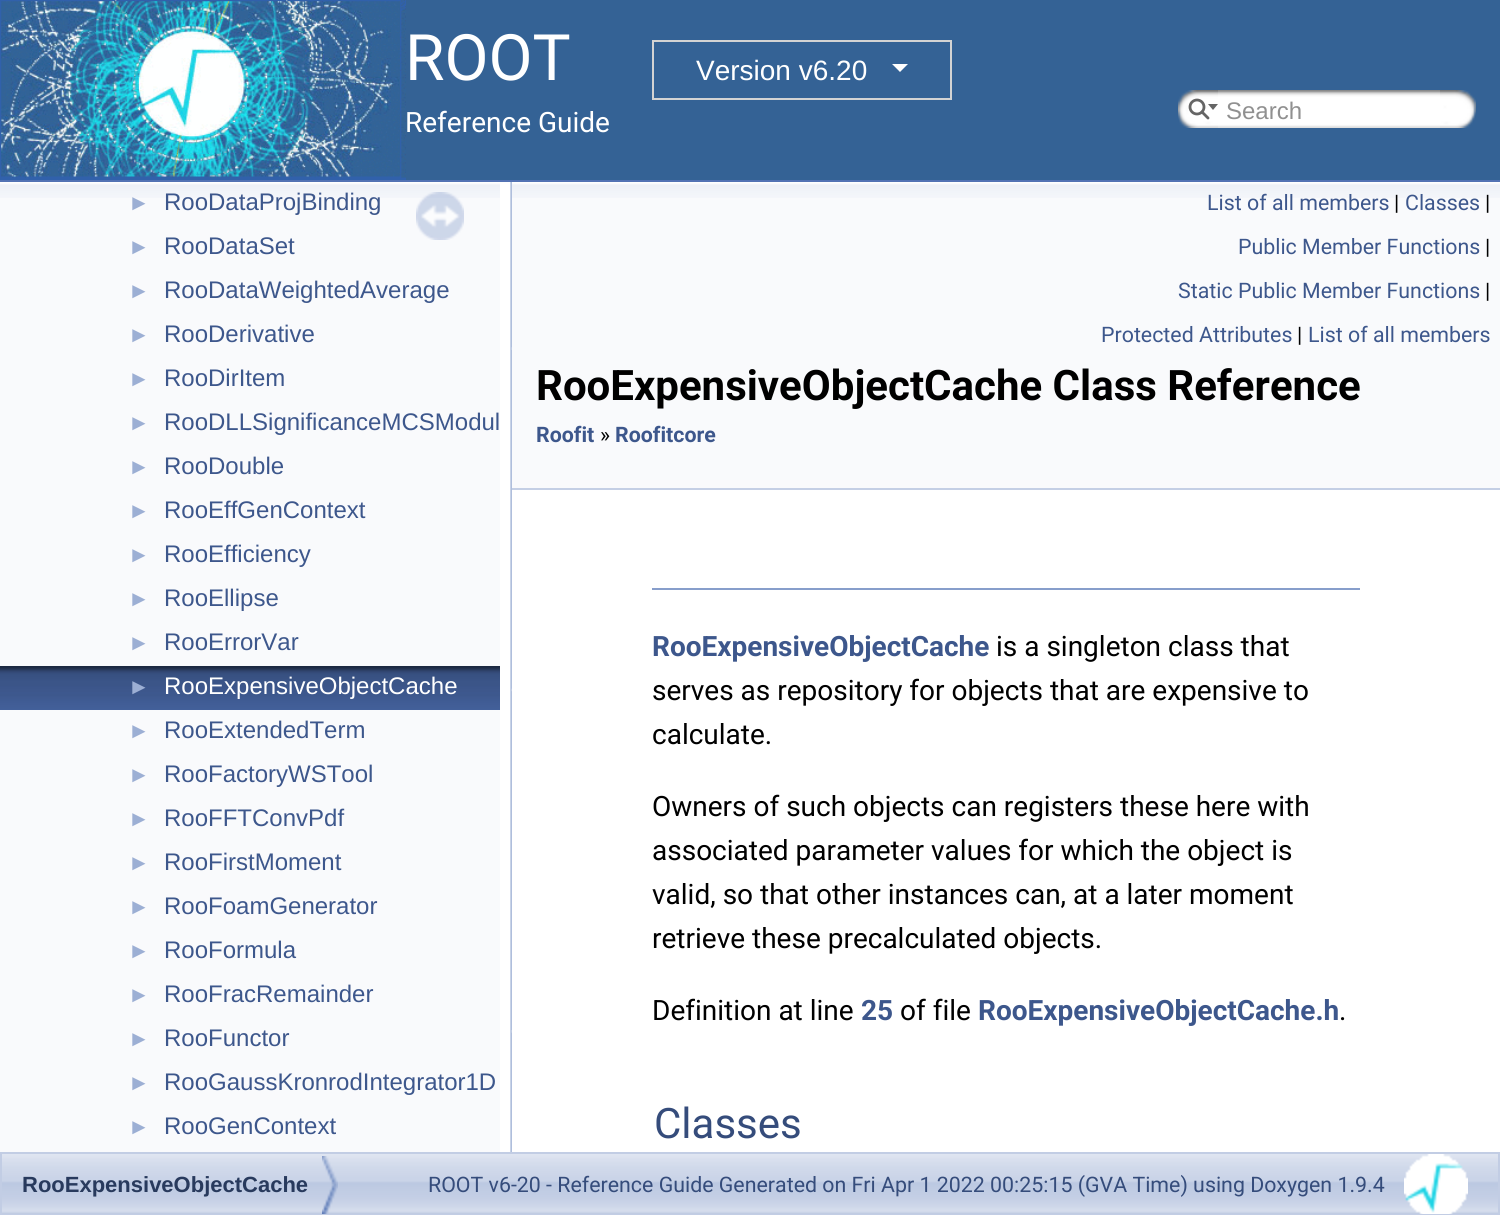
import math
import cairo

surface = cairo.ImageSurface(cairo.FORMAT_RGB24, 1500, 1215)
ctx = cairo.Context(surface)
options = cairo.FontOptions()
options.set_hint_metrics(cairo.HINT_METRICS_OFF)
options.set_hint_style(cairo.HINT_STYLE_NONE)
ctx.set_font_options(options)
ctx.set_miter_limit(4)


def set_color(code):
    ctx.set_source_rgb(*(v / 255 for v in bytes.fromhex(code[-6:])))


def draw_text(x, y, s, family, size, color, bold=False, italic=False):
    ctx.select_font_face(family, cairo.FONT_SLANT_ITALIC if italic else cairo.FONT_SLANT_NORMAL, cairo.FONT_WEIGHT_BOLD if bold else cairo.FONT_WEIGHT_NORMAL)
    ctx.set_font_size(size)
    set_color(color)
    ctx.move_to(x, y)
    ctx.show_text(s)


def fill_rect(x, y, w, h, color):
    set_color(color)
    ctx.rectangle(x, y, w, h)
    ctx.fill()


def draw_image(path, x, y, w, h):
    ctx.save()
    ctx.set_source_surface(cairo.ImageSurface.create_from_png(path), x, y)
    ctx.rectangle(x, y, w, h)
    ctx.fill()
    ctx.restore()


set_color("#ffffff")
ctx.paint()
fill_rect(0, 180, 1500, 2, "#5373b4")
fill_rect(406, 0, 1094, 180, "#346295")
draw_image("assets/img1.png", 0, 0, 406, 180)
draw_text(405, 80, "ROOT", "Roboto", 64, "#ffffff")
ctx.rectangle(653, 41, 298, 58)
set_color("#d3d3d3")
ctx.stroke()
draw_text(696, 80, "Version v6.20", "Liberation Sans", 28, "#ffffff")
ctx.new_path()
ctx.move_to(892, 64)
ctx.line_to(908, 64)
ctx.line_to(900, 72)
ctx.close_path()
ctx.fill()
draw_text(405, 132, "Reference Guide", "Roboto", 28, "#ffffff")
draw_image("assets/img2.png", 1178, 90, 40, 38)
ctx.arc(1197, 107, 7, 0, 2 * math.pi)
set_color("#656565")
ctx.set_line_width(2.8)
ctx.stroke()
ctx.new_path()
ctx.move_to(1208, 104)
ctx.line_to(1213, 110)
ctx.line_to(1218, 104)
ctx.close_path()
ctx.fill()
ctx.new_path()
ctx.move_to(1202, 112)
ctx.line_to(1208, 118)
ctx.set_line_cap(cairo.LINE_CAP_ROUND)
ctx.stroke()
draw_image("assets/img3.png", 1218, 90, 222, 38)
draw_text(1226, 119, "Search", "Liberation Sans", 24, "#909090")
draw_image("assets/img4.png", 1440, 90, 36, 38)
fill_rect(0, 198, 500, 954, "#f9fafc")
draw_image("assets/img5.png", 0, 182, 500, 16)
draw_text(128, 210, "►", "Liberation Sans", 22, "#9cafd4")
draw_text(164, 210, "RooDataProjBinding", "Liberation Sans", 24, "#3d578c")
draw_text(128, 254, "►", "Liberation Sans", 22, "#9cafd4")
draw_text(164, 254, "RooDataSet", "Liberation Sans", 24, "#3d578c")
draw_text(128, 298, "►", "Liberation Sans", 22, "#9cafd4")
draw_text(164, 298, "RooDataWeightedAverage", "Liberation Sans", 24, "#3d578c")
draw_text(128, 342, "►", "Liberation Sans", 22, "#9cafd4")
draw_text(164, 342, "RooDerivative", "Liberation Sans", 24, "#3d578c")
draw_text(128, 386, "►", "Liberation Sans", 22, "#9cafd4")
draw_text(164, 386, "RooDirItem", "Liberation Sans", 24, "#3d578c")
draw_text(128, 430, "►", "Liberation Sans", 22, "#9cafd4")
draw_text(164, 430, "RooDLLSignificanceMCSModul", "Liberation Sans", 24, "#3d578c")
draw_text(128, 474, "►", "Liberation Sans", 22, "#9cafd4")
draw_text(164, 474, "RooDouble", "Liberation Sans", 24, "#3d578c")
draw_text(128, 518, "►", "Liberation Sans", 22, "#9cafd4")
draw_text(164, 518, "RooEffGenContext", "Liberation Sans", 24, "#3d578c")
draw_text(128, 562, "►", "Liberation Sans", 22, "#9cafd4")
draw_text(164, 562, "RooEfficiency", "Liberation Sans", 24, "#3d578c")
draw_text(128, 606, "►", "Liberation Sans", 22, "#9cafd4")
draw_text(164, 606, "RooEllipse", "Liberation Sans", 24, "#3d578c")
draw_text(128, 650, "►", "Liberation Sans", 22, "#9cafd4")
draw_text(164, 650, "RooErrorVar", "Liberation Sans", 24, "#3d578c")
draw_image("assets/img6.png", 0, 666, 500, 44)
draw_text(128, 694, "►", "Liberation Sans", 22, "#9cafd4")
draw_text(164, 694, "RooExpensiveObjectCache", "Liberation Sans", 24, "#ffffff")
draw_text(128, 738, "►", "Liberation Sans", 22, "#9cafd4")
draw_text(164, 738, "RooExtendedTerm", "Liberation Sans", 24, "#3d578c")
draw_text(128, 782, "►", "Liberation Sans", 22, "#9cafd4")
draw_text(164, 782, "RooFactoryWSTool", "Liberation Sans", 24, "#3d578c")
draw_text(128, 826, "►", "Liberation Sans", 22, "#9cafd4")
draw_text(164, 826, "RooFFTConvPdf", "Liberation Sans", 24, "#3d578c")
draw_text(128, 870, "►", "Liberation Sans", 22, "#9cafd4")
draw_text(164, 870, "RooFirstMoment", "Liberation Sans", 24, "#3d578c")
draw_text(128, 914, "►", "Liberation Sans", 22, "#9cafd4")
draw_text(164, 914, "RooFoamGenerator", "Liberation Sans", 24, "#3d578c")
draw_text(128, 958, "►", "Liberation Sans", 22, "#9cafd4")
draw_text(164, 958, "RooFormula", "Liberation Sans", 24, "#3d578c")
draw_text(128, 1002, "►", "Liberation Sans", 22, "#9cafd4")
draw_text(164, 1002, "RooFracRemainder", "Liberation Sans", 24, "#3d578c")
draw_text(128, 1046, "►", "Liberation Sans", 22, "#9cafd4")
draw_text(164, 1046, "RooFunctor", "Liberation Sans", 24, "#3d578c")
draw_text(128, 1090, "►", "Liberation Sans", 22, "#9cafd4")
draw_text(164, 1090, "RooGaussKronrodIntegrator1D", "Liberation Sans", 24, "#3d578c")
draw_text(128, 1134, "►", "Liberation Sans", 22, "#9cafd4")
draw_text(164, 1134, "RooGenContext", "Liberation Sans", 24, "#3d578c")
draw_image("assets/img7.png", 416, 192, 48, 48)
draw_image("assets/img8.png", 510, 182, 2, 970)
fill_rect(512, 198, 988, 290, "#f9fafc")
draw_image("assets/img9.png", 512, 182, 988, 16)
fill_rect(512, 488, 988, 2, "#c4cfe5")
draw_text(1207, 210, "List of all members", "Roboto", 21.35, "#3d578c")
draw_text(1394, 210, "|", "Roboto", 21.35, "#000000")
draw_text(1405, 210, "Classes", "Roboto", 21.35, "#3d578c")
draw_text(1485, 210, "|", "Roboto", 21.35, "#000000")
draw_text(1238, 254, "Public Member Functions", "Roboto", 21.35, "#3d578c")
draw_text(1485, 254, "|", "Roboto", 21.35, "#000000")
draw_text(1178, 298, "Static Public Member Functions", "Roboto", 21.35, "#3d578c")
draw_text(1485, 298, "|", "Roboto", 21.35, "#000000")
draw_text(1101, 342, "Protected Attributes", "Roboto", 21.35, "#3d578c")
draw_text(1297, 342, "|", "Roboto", 21.35, "#000000")
draw_text(1308, 342, "List of all members", "Roboto", 21.35, "#3d578c")
draw_text(536, 400, "RooExpensiveObjectCache Class Reference", "Roboto", 42, "#000000", bold=True)
draw_text(536, 442, "Roofit", "Roboto", 21.35, "#3d578c", bold=True)
draw_text(600, 442, "»", "Roboto", 21.35, "#000000")
draw_text(615, 442, "Roofitcore", "Roboto", 21.35, "#3d578c", bold=True)
fill_rect(652, 588, 708, 2, "#879ecb")
draw_text(652, 656, "RooExpensiveObjectCache", "Roboto", 28, "#3d578c", bold=True)
draw_text(996, 656, "is a singleton class that", "Roboto", 28, "#000000")
draw_text(652, 700, "serves as repository for objects that are expensive to", "Roboto", 28, "#000000")
draw_text(652, 744, "calculate.", "Roboto", 28, "#000000")
draw_text(652, 816, "Owners of such objects can registers these here with", "Roboto", 28, "#000000")
draw_text(652, 860, "associated parameter values for which the object is", "Roboto", 28, "#000000")
draw_text(652, 904, "valid, so that other instances can, at a later moment", "Roboto", 28, "#000000")
draw_text(652, 948, "retrieve these precalculated objects.", "Roboto", 28, "#000000")
draw_text(652, 1020, "Definition at line", "Roboto", 28, "#000000")
draw_text(861, 1020, "25", "Roboto", 28, "#3d578c", bold=True)
draw_text(900, 1020, "of file", "Roboto", 28, "#000000")
draw_text(978, 1020, "RooExpensiveObjectCache.h", "Roboto", 28, "#3d578c", bold=True)
draw_text(1339, 1020, ".", "Roboto", 28, "#000000")
draw_text(654, 1138, "Classes", "Roboto", 42, "#354c7b")
draw_image("assets/img10.png", 2, 1154, 1496, 60)
ctx.rectangle(1, 1153, 1498, 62)
set_color("#c2cde4")
ctx.set_line_width(2)
ctx.set_line_cap(cairo.LINE_CAP_BUTT)
ctx.stroke()
draw_image("assets/img11.png", 322, 1156, 16, 58)
draw_text(22, 1192, "RooExpensiveObjectCache", "Liberation Sans", 22, "#283a5d", bold=True)
draw_text(428, 1192, "ROOT v6-20 - Reference Guide Generated on Fri Apr 1 2022 00:25:15 (GVA Time) using Doxygen 1.9.4", "Roboto", 21.35, "#354c7b")
draw_image("assets/img12.png", 1404, 1154, 64, 60)
surface.write_to_png("output.png")
